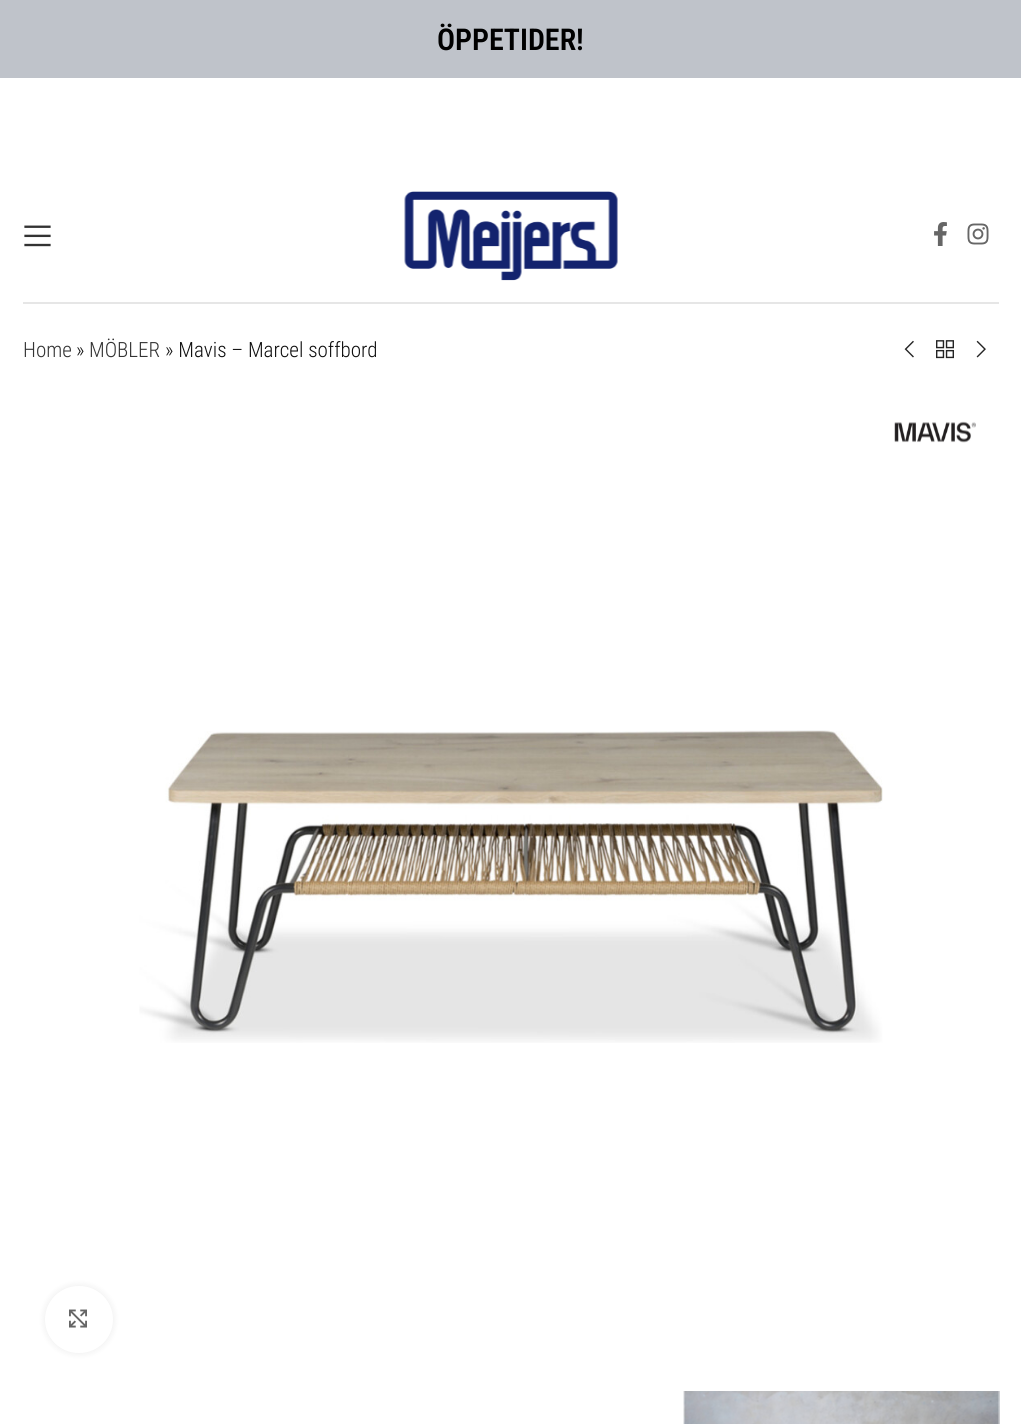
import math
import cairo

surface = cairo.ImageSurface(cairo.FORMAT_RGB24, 1021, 1424)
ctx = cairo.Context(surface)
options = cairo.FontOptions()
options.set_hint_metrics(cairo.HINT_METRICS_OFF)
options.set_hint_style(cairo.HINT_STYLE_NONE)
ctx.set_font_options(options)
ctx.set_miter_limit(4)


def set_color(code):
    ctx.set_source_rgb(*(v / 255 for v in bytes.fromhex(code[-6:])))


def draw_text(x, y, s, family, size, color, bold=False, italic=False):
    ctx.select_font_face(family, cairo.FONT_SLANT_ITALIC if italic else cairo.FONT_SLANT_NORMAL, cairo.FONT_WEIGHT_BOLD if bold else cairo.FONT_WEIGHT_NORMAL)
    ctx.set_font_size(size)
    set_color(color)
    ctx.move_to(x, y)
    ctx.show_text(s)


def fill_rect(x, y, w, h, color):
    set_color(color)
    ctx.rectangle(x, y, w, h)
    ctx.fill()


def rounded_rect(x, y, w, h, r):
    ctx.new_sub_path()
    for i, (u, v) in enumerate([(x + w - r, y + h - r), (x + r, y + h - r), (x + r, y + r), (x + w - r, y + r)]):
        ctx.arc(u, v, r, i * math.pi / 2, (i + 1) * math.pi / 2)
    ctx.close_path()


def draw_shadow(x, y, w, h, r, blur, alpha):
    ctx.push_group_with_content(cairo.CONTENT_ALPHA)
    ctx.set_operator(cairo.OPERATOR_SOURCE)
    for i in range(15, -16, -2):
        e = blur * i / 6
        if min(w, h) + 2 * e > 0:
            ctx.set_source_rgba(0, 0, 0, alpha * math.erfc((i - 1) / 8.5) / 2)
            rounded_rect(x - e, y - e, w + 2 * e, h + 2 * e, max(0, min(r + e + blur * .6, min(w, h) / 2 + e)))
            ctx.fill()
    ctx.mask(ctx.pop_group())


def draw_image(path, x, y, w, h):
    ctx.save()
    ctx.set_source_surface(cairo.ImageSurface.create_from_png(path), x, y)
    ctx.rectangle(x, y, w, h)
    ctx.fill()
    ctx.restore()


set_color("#ffffff")
ctx.paint()
fill_rect(0, 0, 1021, 78, "#bfc3ca")
draw_text(437, 50, "ÖPPETIDER!", "Roboto Condensed SemiBold", 30, "#000000")
fill_rect(23, 302, 976, 2, "#e6e6e6")
draw_image("assets/img1.png", 24, 225, 27, 22)
draw_image("assets/img2.png", 404, 191, 214, 90)
draw_image("assets/img3.png", 934, 222, 13, 24)
draw_image("assets/img4.png", 967, 223, 22, 22)
draw_text(23, 357, "Home", "Roboto Condensed Light", 21, "#333333")
draw_text(76, 357, "»", "Roboto Condensed Light", 21, "#0f0f0f")
draw_text(89, 357, "MÖBLER", "Roboto Condensed Light", 21, "#333333")
draw_text(165, 357, "» Mavis – Marcel soffbord", "Roboto Condensed Light", 21, "#0f0f0f")
draw_image("assets/img5.png", 904, 340, 10, 18)
draw_image("assets/img6.png", 936, 340, 18, 19)
draw_image("assets/img7.png", 976, 340, 10, 18)
draw_image("assets/img8.png", 894, 421, 82, 22)
draw_image("assets/img9.png", 139, 730, 744, 313)
set_color("#000000")
draw_shadow(45, 1286, 68, 67, 33.5, 4, 0.08)
set_color("#ffffff")
rounded_rect(45, 1286, 68, 67, 33.5)
ctx.fill()
draw_image("assets/img10.png", 69, 1309, 18, 19)
draw_image("assets/img11.png", 683, 1391, 317, 33)
surface.write_to_png("output.png")
